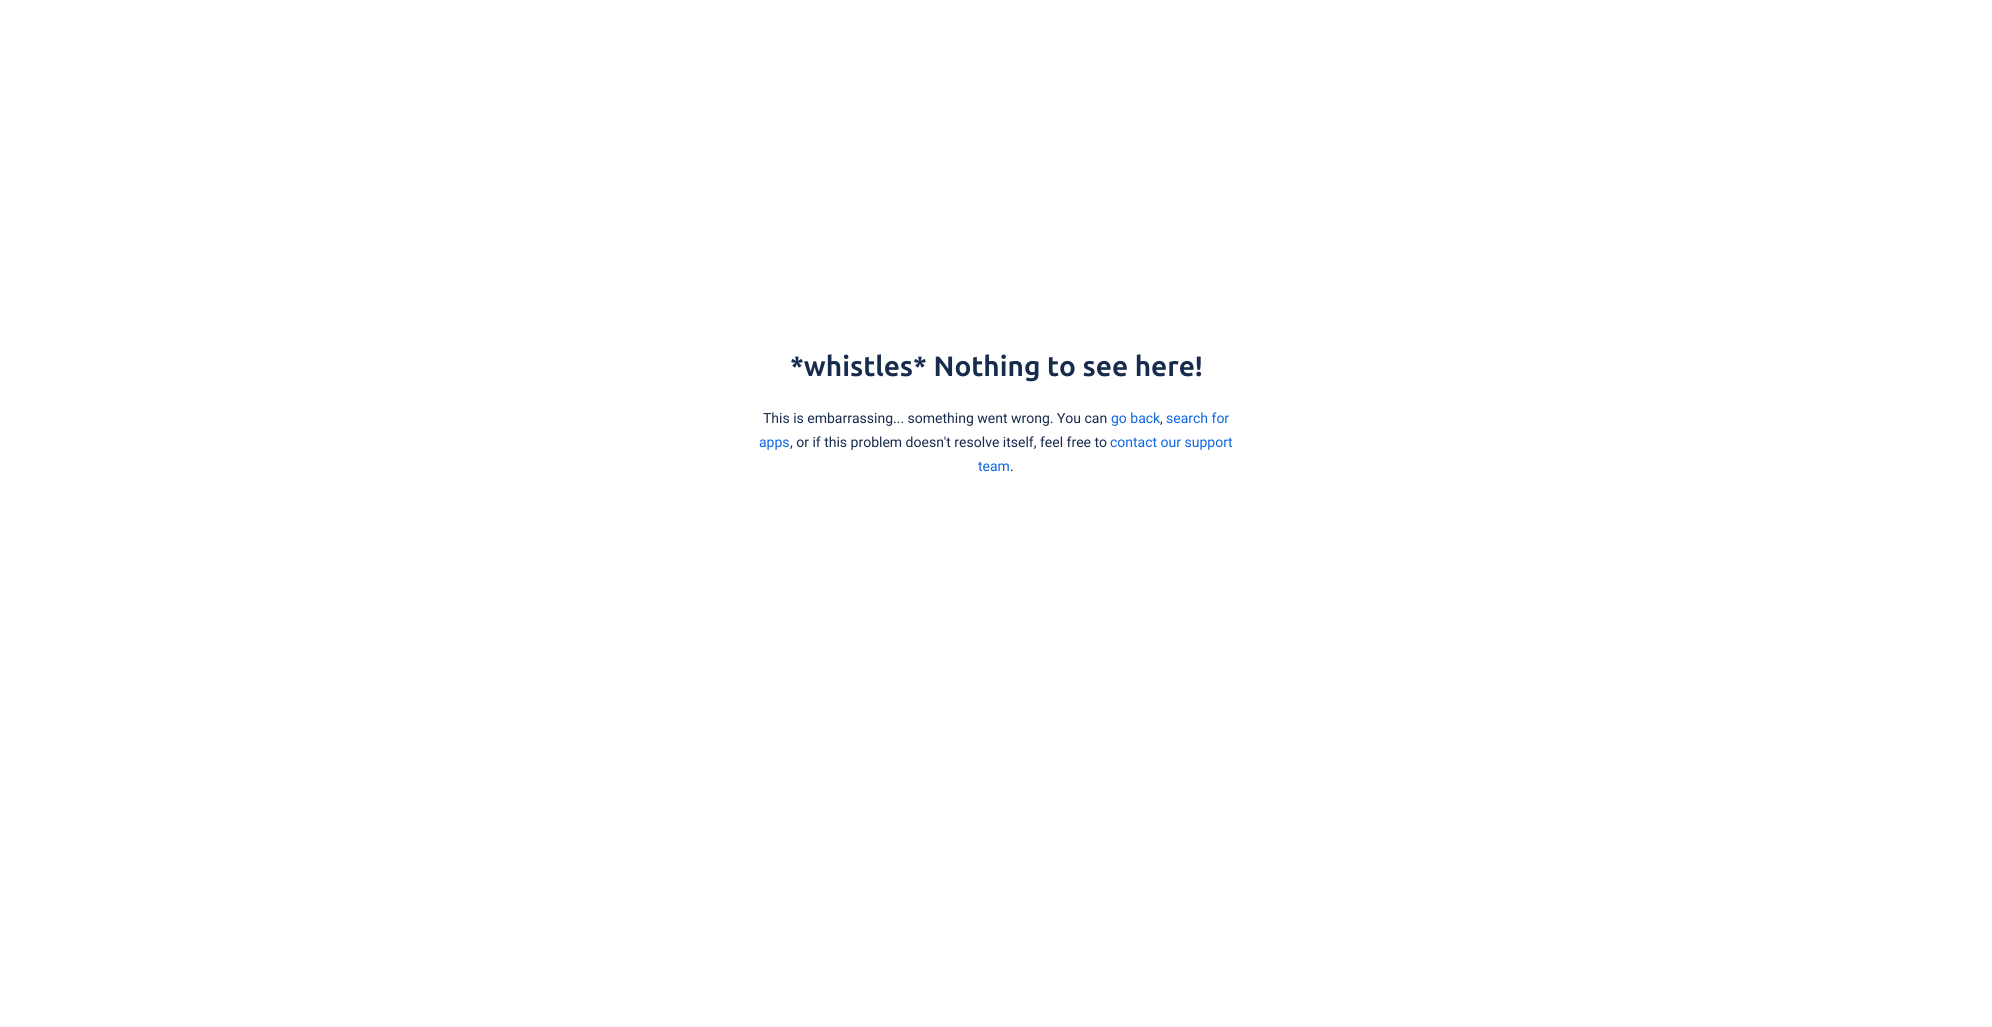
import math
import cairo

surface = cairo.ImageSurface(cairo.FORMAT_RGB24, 1992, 1027)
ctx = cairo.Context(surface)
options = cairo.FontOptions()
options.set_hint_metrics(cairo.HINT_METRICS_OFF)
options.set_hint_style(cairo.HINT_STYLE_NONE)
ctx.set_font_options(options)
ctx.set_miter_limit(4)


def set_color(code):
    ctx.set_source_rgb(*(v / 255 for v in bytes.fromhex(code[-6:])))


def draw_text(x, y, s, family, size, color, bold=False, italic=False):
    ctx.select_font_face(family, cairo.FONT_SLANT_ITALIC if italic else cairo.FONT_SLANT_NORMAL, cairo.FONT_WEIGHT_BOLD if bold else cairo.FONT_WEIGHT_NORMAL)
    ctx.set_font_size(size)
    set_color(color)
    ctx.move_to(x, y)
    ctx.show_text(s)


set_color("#ffffff")
ctx.paint()
draw_text(790, 376, "*whistles* Nothing to see here!", "Ubuntu", 28, "#172b4d", bold=True)
draw_text(763, 423, "This is embarrassing... something went wrong. You can", "Roboto", 14, "#172b4d")
draw_text(1111, 423, "go back", "Roboto", 14, "#0c66e4")
draw_text(1160, 423, ",", "Roboto", 14, "#172b4d")
draw_text(1166, 423, "search for", "Roboto", 14, "#0c66e4")
draw_text(759, 447, "apps", "Roboto", 14, "#0c66e4")
draw_text(790, 447, ", or if this problem doesn't resolve itself, feel free to", "Roboto", 14, "#172b4d")
draw_text(1110, 447, "contact our support", "Roboto", 14, "#0c66e4")
draw_text(978, 471, "team", "Roboto", 14, "#0c66e4")
draw_text(1010, 471, ".", "Roboto", 14, "#172b4d")
surface.write_to_png("output.png")
